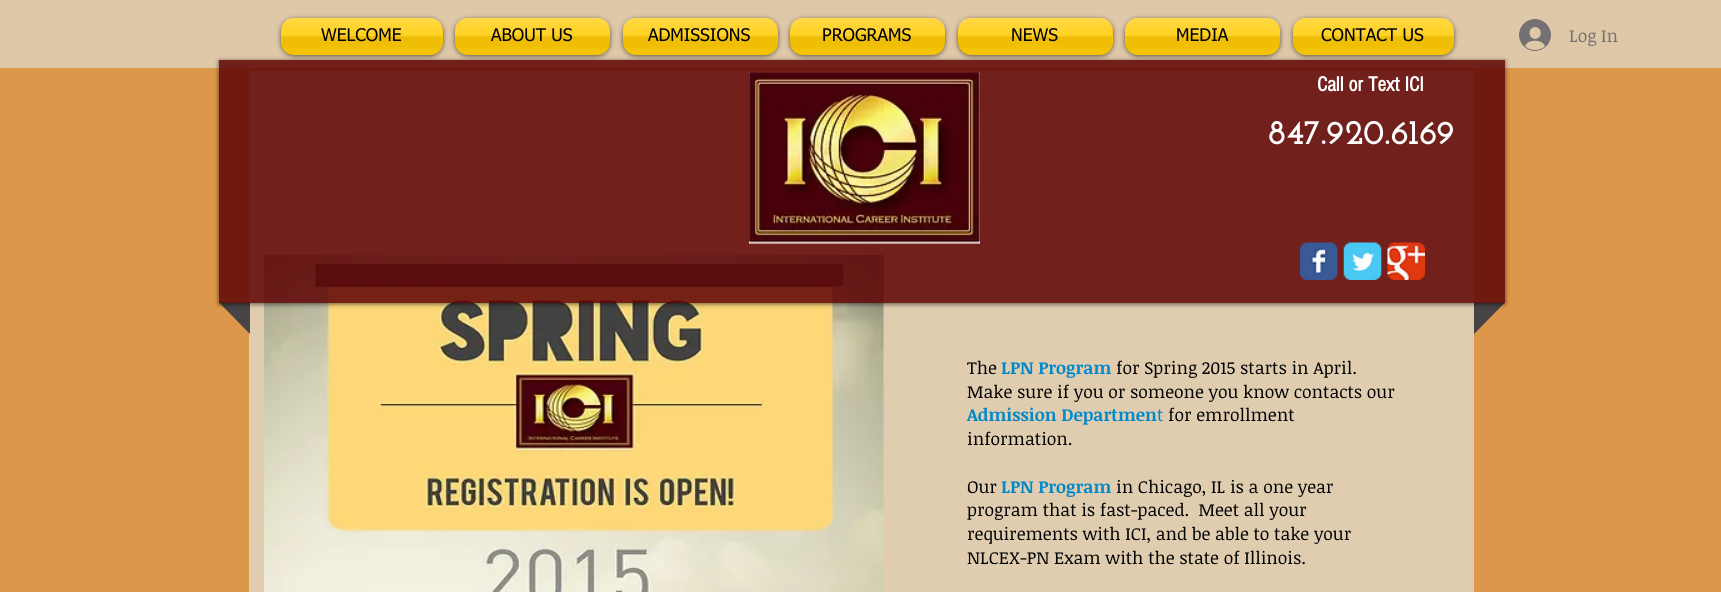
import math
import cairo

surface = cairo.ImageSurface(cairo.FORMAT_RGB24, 1721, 592)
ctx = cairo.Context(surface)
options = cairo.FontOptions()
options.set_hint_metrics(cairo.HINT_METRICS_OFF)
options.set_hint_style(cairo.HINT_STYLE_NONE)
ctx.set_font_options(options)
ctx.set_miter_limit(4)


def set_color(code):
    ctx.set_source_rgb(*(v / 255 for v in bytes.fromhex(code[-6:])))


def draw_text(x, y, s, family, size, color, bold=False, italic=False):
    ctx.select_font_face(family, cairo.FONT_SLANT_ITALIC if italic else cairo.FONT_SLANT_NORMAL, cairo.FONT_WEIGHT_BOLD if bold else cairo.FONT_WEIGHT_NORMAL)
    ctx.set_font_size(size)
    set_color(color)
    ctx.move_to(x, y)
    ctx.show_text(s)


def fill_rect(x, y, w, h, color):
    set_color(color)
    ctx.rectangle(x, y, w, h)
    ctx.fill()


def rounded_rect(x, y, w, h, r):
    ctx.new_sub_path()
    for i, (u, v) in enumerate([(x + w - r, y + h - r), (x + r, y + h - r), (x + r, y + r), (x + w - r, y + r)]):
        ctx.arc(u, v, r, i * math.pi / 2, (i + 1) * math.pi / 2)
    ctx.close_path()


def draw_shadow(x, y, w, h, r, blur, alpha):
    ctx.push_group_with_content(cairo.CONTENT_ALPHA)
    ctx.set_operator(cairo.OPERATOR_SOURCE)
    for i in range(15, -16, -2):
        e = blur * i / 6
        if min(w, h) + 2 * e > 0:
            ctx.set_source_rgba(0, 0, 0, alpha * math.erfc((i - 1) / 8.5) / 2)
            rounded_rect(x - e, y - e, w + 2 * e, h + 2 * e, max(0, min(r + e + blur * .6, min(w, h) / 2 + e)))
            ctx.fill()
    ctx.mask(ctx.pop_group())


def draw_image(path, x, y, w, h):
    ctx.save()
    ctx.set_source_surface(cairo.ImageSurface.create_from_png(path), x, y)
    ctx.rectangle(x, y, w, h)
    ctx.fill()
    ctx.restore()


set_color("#dd974b")
ctx.paint()
fill_rect(0, 0, 1721, 68, "#dfc8a8")
set_color("#000000")
draw_shadow(281, 19, 162, 37, 13, 2.5, 0.6)
set_color("#ffcb05")
rounded_rect(281, 18, 162, 37, 13)
ctx.fill()
draw_image("assets/img1.png", 281, 17, 162, 38)
draw_text(321, 41, "WELCOME", "tahoma", 17.5, "#000000")
set_color("#000000")
draw_shadow(455, 19, 155, 37, 13, 2.5, 0.6)
set_color("#ffcb05")
rounded_rect(455, 18, 155, 37, 13)
ctx.fill()
draw_image("assets/img2.png", 455, 17, 155, 38)
draw_text(491, 41, "ABOUT US", "tahoma", 17.5, "#000000")
set_color("#000000")
draw_shadow(623, 19, 155, 37, 13, 2.5, 0.6)
set_color("#ffcb05")
rounded_rect(623, 18, 155, 37, 13)
ctx.fill()
draw_image("assets/img3.png", 622, 17, 156, 38)
draw_text(648, 41, "ADMISSIONS", "tahoma", 17.5, "#000000")
set_color("#000000")
draw_shadow(790, 19, 155, 37, 13, 2.5, 0.6)
set_color("#ffcb05")
rounded_rect(790, 18, 155, 37, 13)
ctx.fill()
draw_image("assets/img4.png", 790, 17, 155, 38)
draw_text(822, 41, "PROGRAMS", "tahoma", 17.5, "#000000")
set_color("#000000")
draw_shadow(958, 19, 155, 37, 13, 2.5, 0.6)
set_color("#ffcb05")
rounded_rect(958, 18, 155, 37, 13)
ctx.fill()
draw_image("assets/img5.png", 957, 17, 156, 38)
draw_text(1011, 41, "NEWS", "tahoma", 17.5, "#000000")
set_color("#000000")
draw_shadow(1125, 19, 155, 37, 13, 2.5, 0.6)
set_color("#ffcb05")
rounded_rect(1125, 18, 155, 37, 13)
ctx.fill()
draw_image("assets/img6.png", 1125, 17, 155, 38)
draw_text(1176, 41, "MEDIA", "tahoma", 17.5, "#000000")
set_color("#000000")
draw_shadow(1293, 19, 161, 37, 13, 2.5, 0.6)
set_color("#ffcb05")
rounded_rect(1293, 18, 161, 37, 13)
ctx.fill()
draw_image("assets/img7.png", 1292, 17, 162, 38)
draw_text(1321, 41, "CONTACT US", "tahoma", 17.5, "#000000")
draw_image("assets/img8.png", 1519, 19, 32, 32)
draw_text(1569, 42, "Log In", "Noticia Text", 17.5, "#757073")
fill_rect(249, 71, 1225, 521, "#e0cdb0")
set_color("#474346")
ctx.new_path()
ctx.move_to(219, 302.5)
ctx.line_to(250, 302.5)
ctx.line_to(250, 334)
ctx.close_path()
ctx.fill()
ctx.new_path()
ctx.move_to(1474, 302.5)
ctx.line_to(1505, 302.5)
ctx.line_to(1474, 334)
ctx.close_path()
ctx.fill()
draw_image("assets/img13.png", 263, 255, 621, 337)
ctx.save()
ctx.set_fill_rule(cairo.FILL_RULE_EVEN_ODD)
ctx.new_path()
ctx.move_to(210, 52)
ctx.line_to(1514, 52)
ctx.line_to(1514, 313)
ctx.line_to(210, 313)
ctx.close_path()
ctx.move_to(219, 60)
ctx.line_to(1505, 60)
ctx.line_to(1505, 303)
ctx.line_to(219, 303)
ctx.close_path()
ctx.clip()
set_color("#000000")
draw_shadow(219, 61, 1286, 243, 0, 2.5, 0.6)
ctx.restore()
ctx.set_source_rgba(0.376, 0.02, 0.02, 0.86)
ctx.rectangle(219, 60, 1286, 243)
ctx.fill()
draw_image("assets/img9.png", 748, 72, 232, 172)
draw_text(1317, 91, "Call or Text ICI", "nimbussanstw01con", 21.25, "#ffffff", bold=True)
draw_text(1268, 144, "847.920.6169", "Josefin Slab", 35, "#ffffff", bold=True)
draw_image("assets/img10.png", 1300, 242, 38, 38)
draw_image("assets/img11.png", 1343, 242, 39, 38)
draw_image("assets/img12.png", 1387, 242, 38, 38)
draw_text(967, 374, "The", "Noticia Text", 17.5, "#000000")
draw_text(1001, 374, "LPN Program", "Noticia Text", 17.5, "#0088cb", bold=True)
draw_text(1116, 374, "for Spring 2015 starts in April.", "Noticia Text", 17.5, "#000000")
draw_text(967, 398, "Make sure if you or someone you know contacts our", "Noticia Text", 17.5, "#000000")
draw_text(967, 421, "Admission Departmen", "Noticia Text", 17.5, "#0088cb", bold=True)
draw_text(1157, 421, "t", "Noticia Text", 17.5, "#0088cb")
draw_text(1168, 421, "for emrollment", "Noticia Text", 17.5, "#000000")
draw_text(967, 445, "information.", "Noticia Text", 17.5, "#000000")
draw_text(967, 493, "Our", "Noticia Text", 17.5, "#000000")
draw_text(1001, 493, "LPN Program", "Noticia Text", 17.5, "#0088cb", bold=True)
draw_text(1116, 493, "in Chicago, IL is a one year", "Noticia Text", 17.5, "#000000")
draw_text(967, 516, "program that is fast-paced.  Meet all your", "Noticia Text", 17.5, "#000000")
draw_text(967, 540, "requirements with ICI, and be able to take your", "Noticia Text", 17.5, "#000000")
draw_text(967, 564, "NLCEX-PN Exam with the state of Illinois.", "Noticia Text", 17.5, "#000000")
surface.write_to_png("output.png")
